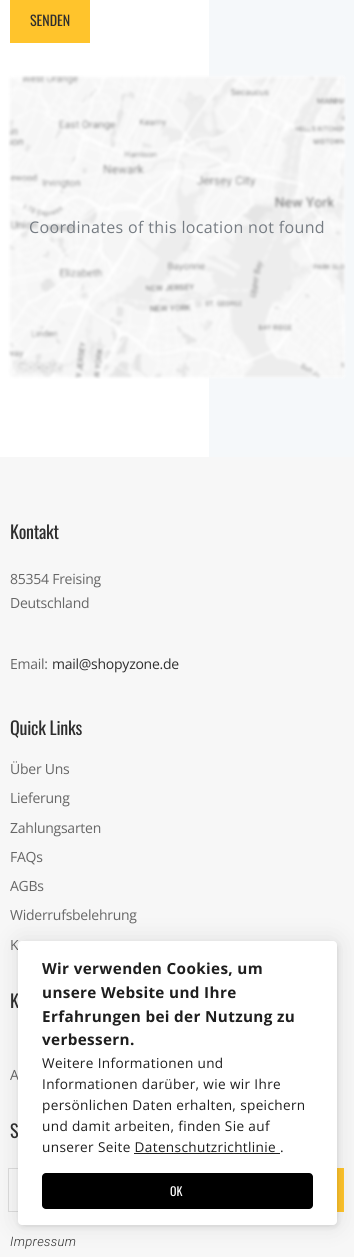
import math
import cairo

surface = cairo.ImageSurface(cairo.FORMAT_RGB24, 354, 1257)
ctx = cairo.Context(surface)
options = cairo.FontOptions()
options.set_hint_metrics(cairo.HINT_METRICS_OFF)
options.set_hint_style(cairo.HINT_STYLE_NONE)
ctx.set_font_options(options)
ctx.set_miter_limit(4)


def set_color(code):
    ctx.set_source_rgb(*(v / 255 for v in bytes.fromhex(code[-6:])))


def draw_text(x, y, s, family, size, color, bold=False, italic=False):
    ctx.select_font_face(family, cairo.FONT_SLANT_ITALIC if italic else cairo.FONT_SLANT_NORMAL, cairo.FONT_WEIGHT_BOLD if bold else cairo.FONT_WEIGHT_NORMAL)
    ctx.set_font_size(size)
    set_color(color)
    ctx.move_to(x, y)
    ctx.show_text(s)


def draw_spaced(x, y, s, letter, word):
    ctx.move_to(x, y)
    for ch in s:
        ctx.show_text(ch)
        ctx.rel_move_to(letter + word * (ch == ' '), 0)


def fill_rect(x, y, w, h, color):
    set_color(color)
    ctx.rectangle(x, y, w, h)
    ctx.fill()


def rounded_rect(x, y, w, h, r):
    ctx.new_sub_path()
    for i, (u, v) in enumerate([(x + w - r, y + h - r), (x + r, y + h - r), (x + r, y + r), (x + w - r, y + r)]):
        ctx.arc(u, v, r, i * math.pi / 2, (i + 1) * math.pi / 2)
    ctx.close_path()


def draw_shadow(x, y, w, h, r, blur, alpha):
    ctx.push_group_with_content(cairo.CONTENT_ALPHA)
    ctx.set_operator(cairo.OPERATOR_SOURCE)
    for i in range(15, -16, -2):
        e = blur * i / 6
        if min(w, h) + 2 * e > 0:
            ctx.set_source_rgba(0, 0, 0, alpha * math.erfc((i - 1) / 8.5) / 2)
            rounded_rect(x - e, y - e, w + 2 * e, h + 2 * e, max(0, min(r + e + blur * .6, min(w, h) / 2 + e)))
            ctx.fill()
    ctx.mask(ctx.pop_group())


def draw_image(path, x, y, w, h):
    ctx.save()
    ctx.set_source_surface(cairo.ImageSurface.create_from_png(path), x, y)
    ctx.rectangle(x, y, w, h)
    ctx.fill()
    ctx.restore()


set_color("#ffffff")
ctx.paint()
fill_rect(209, 0, 145, 457, "#f5f8fa")
fill_rect(10, 0, 80, 43, "#ffc42c")
draw_text(30, 26, "SENDEN", "Oswald", 14, "#2e2e2e")
set_color("#ffffff")
draw_shadow(10, 77, 334, 300, 0, 1.5, 1)
draw_image("assets/img1.png", 8, 75, 338, 304)
ctx.select_font_face("Open Sans")
ctx.set_font_size(16)
set_color("#767c83")
draw_spaced(29, 233, "Coordinates of this location not found", 0.35, 0)
fill_rect(0, 457, 354, 800, "#f7f7f7")
ctx.select_font_face("Oswald")
ctx.set_font_size(18)
set_color("#2e2e2e")
draw_spaced(10, 539, "Kontakt", -0.25, 0)
ctx.select_font_face("Open Sans")
ctx.set_font_size(14)
set_color("#666666")
draw_spaced(10, 584, "85354 Freising", -0.25, 0)
draw_spaced(10, 608, "Deutschland", -0.25, 0)
draw_spaced(10, 669, "Email:", -0.25, 0)
set_color("#2e2e2e")
draw_spaced(52, 669, "mail@shopyzone.de", -0.25, 0)
ctx.select_font_face("Oswald")
ctx.set_font_size(18)
draw_spaced(10, 735, "Quick Links", -0.25, 0)
ctx.select_font_face("Open Sans")
ctx.set_font_size(14)
set_color("#666666")
draw_spaced(10, 774, "Über Uns", -0.25, 0)
draw_spaced(10, 803, "Lieferung", -0.25, 0)
draw_spaced(10, 833, "Zahlungsarten", -0.25, 0)
draw_spaced(10, 862, "FAQs", -0.25, 0)
draw_spaced(10, 891, "AGBs", -0.25, 0)
draw_spaced(10, 920, "Widerrufsbelehrung", -0.25, 0)
draw_spaced(10, 950, "K", -0.25, 0)
ctx.select_font_face("Oswald")
ctx.set_font_size(18)
set_color("#2e2e2e")
draw_spaced(10, 1008, "K", -0.25, 0)
ctx.select_font_face("Open Sans")
ctx.set_font_size(14)
set_color("#666666")
draw_spaced(10, 1080, "A", -0.25, 0)
ctx.select_font_face("Oswald")
ctx.set_font_size(18)
set_color("#2e2e2e")
draw_spaced(10, 1138, "S", -0.25, 0)
ctx.rectangle(8.5, 1168.5, 312, 43)
set_color("#dbdbdb")
ctx.set_line_width(1)
ctx.stroke()
fill_rect(337, 1168, 7, 44, "#ffc42b")
ctx.select_font_face("Roboto Light", cairo.FONT_SLANT_ITALIC)
ctx.set_font_size(13)
set_color("#2e2e2e")
draw_spaced(10, 1246, "Impressum", 0.35, 0)
set_color("#000000")
draw_shadow(19, 943, 319, 284, 4, 2.5, 0.1)
draw_shadow(18, 941, 319, 284, 4, 12.5, 0.1)
set_color("#ffffff")
rounded_rect(18, 941, 319, 284, 4)
ctx.fill()
ctx.select_font_face("Open Sans", cairo.FONT_SLANT_NORMAL, cairo.FONT_WEIGHT_BOLD)
ctx.set_font_size(15.25)
set_color("#1e1e1e")
draw_spaced(42, 974, "Wir verwenden Cookies, um", 0.35, 0)
draw_spaced(42, 998, "unsere Website und Ihre", 0.35, 0)
draw_spaced(42, 1022, "Erfahrungen bei der Nutzung zu", 0.35, 0)
draw_spaced(42, 1045, "verbessern.", 0.35, 0)
ctx.select_font_face("Open Sans")
ctx.set_font_size(13.6)
draw_spaced(42, 1068, "Weitere Informationen und", 0.35, 0)
draw_spaced(42, 1089, "Informationen darüber, wie wir Ihre", 0.35, 0)
draw_spaced(42, 1110, "persönlichen Daten erhalten, speichern", 0.35, 0)
draw_spaced(42, 1131, "und damit arbeiten, finden Sie auf", 0.35, 0)
draw_spaced(42, 1152, "unserer Seite Datenschutzrichtlinie .", 0.35, 0)
fill_rect(134, 1153, 146, 1, "#1e1e1e")
set_color("#000000")
rounded_rect(42, 1173, 271, 36, 4)
ctx.fill()
draw_text(170, 1196, "OK", "Oswald", 12, "#ffffff")
surface.write_to_png("output.png")
